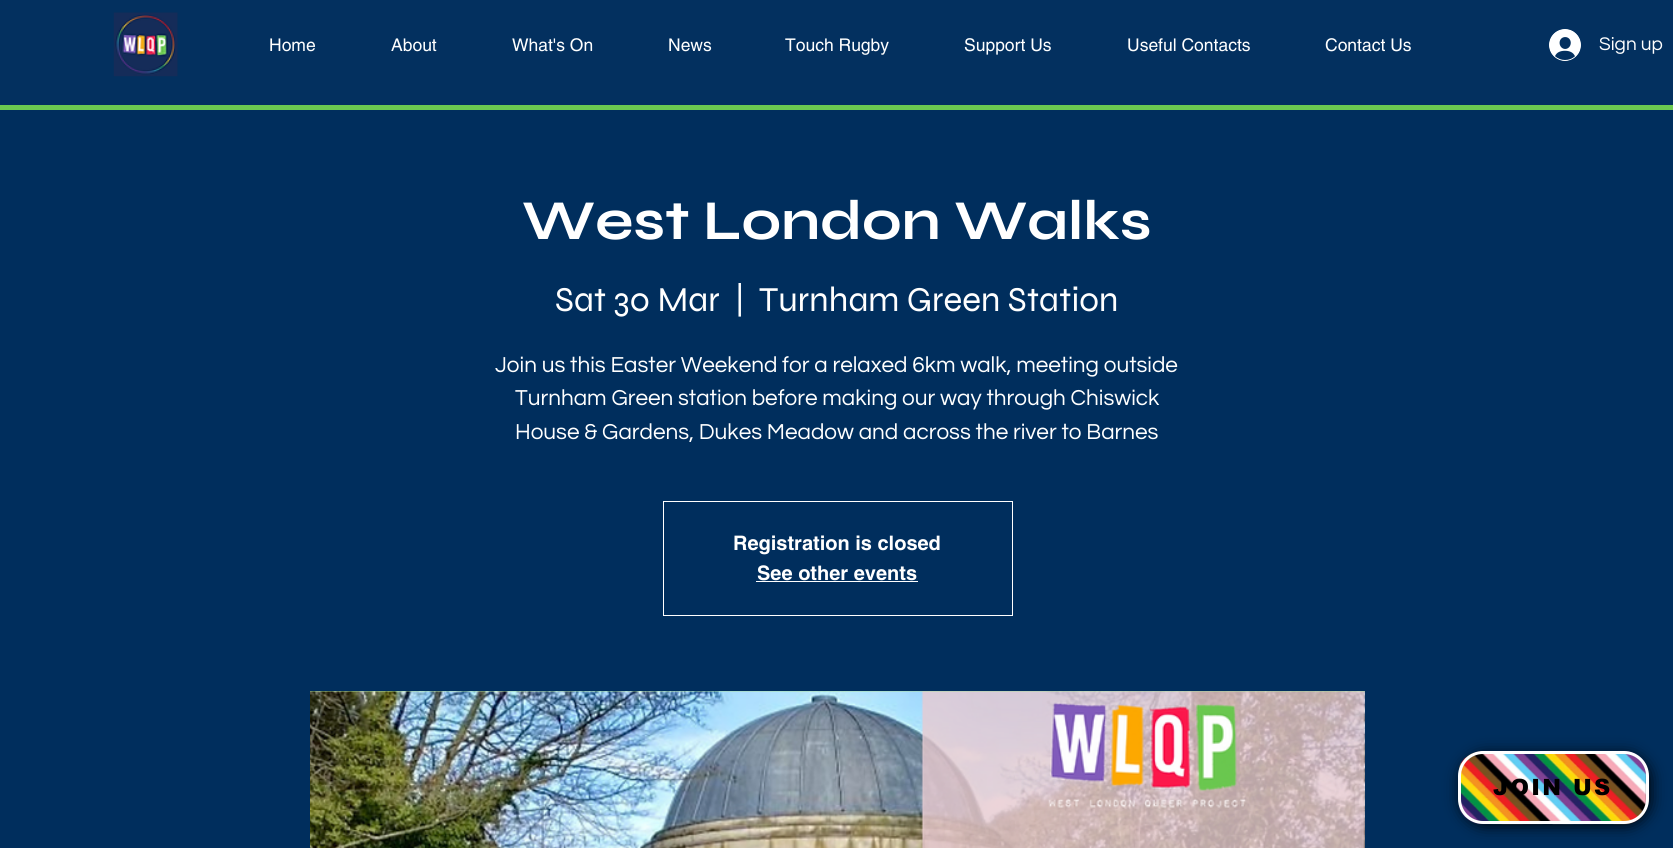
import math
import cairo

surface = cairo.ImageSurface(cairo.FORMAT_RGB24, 1673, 848)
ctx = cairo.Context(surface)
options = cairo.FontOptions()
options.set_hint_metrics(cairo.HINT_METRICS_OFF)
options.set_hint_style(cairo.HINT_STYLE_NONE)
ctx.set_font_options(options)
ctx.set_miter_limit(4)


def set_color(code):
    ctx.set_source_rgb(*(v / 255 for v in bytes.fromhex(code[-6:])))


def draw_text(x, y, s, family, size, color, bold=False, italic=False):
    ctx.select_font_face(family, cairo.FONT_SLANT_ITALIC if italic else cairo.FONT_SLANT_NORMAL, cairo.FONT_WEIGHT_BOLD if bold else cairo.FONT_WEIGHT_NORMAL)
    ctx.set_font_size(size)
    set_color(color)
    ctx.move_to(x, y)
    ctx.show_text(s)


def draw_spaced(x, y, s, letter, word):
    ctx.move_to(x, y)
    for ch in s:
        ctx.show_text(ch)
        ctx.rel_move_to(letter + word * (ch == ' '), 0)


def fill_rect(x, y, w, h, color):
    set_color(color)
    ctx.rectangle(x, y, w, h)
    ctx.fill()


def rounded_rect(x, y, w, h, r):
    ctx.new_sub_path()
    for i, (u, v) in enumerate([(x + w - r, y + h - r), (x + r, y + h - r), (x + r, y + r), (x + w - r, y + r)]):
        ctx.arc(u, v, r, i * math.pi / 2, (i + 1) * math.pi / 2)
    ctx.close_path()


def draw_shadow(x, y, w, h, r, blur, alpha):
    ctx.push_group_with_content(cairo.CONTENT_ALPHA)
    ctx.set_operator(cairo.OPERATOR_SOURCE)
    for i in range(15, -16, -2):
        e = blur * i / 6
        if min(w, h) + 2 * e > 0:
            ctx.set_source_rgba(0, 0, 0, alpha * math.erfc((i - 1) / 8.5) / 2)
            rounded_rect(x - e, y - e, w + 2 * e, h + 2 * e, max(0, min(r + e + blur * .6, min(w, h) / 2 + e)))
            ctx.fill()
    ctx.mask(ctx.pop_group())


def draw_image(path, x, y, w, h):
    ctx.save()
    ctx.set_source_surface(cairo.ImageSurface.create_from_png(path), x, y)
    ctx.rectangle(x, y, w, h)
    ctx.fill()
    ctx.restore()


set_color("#002e5d")
ctx.paint()
fill_rect(0, 0, 1673, 105, "#03305f")
draw_image("assets/img1.png", 113, 12, 65, 65)
draw_text(269, 51, "Home", "helvetica", 17.5, "#ffffff")
draw_text(391, 51, "About", "helvetica", 17.5, "#ffffff")
draw_text(512, 51, "What's On", "helvetica", 17.5, "#ffffff")
draw_text(668, 51, "News", "helvetica", 17.5, "#ffffff")
draw_text(785, 51, "Touch Rugby", "helvetica", 17.5, "#ffffff")
draw_text(964, 51, "Support Us", "helvetica", 17.5, "#ffffff")
draw_text(1127, 51, "Useful Contacts", "helvetica", 17.5, "#ffffff")
draw_text(1325, 51, "Contact Us", "helvetica", 17.5, "#ffffff")
draw_image("assets/img2.png", 1549, 29, 32, 32)
draw_text(1599, 50, "Sign up", "Questrial", 19, "#ffffff")
fill_rect(0, 105, 1673, 5, "#6bc950")
draw_text(522, 239, "West London Walks", "Syne", 56.25, "#ffffff", bold=True)
draw_text(555, 311, "Sat 30 Mar", "Syne", 35, "#ffffff")
draw_text(735, 311, "|", "Syne", 35, "#ffffff")
draw_text(759, 311, "Turnham Green Station", "Syne", 35, "#ffffff")
draw_text(495, 372, "Join us this Easter Weekend for a relaxed 6km walk, meeting outside", "Questrial", 22.5, "#ffffff")
draw_text(515, 405, "Turnham Green station before making our way through Chiswick", "Questrial", 22.5, "#ffffff")
draw_text(515, 439, "House & Gardens, Dukes Meadow and across the river to Barnes", "Questrial", 22.5, "#ffffff")
ctx.rectangle(663.5, 501.5, 349, 114)
ctx.set_line_width(1)
ctx.stroke()
draw_text(733, 550, "Registration is closed", "helvetica", 20, "#ffffff", bold=True)
draw_text(757, 580, "See other events", "helvetica", 20, "#ffffff", bold=True)
fill_rect(756, 581, 162, 1, "#ffffff")
fill_rect(310, 691, 1055, 1, "#a8db99")
draw_image("assets/img3.png", 310, 691, 1055, 157)
set_color("#000000")
draw_shadow(1461, 755, 189, 70, 24, 8, 1)
draw_image("assets/img4.png", 1459, 751, 188, 74)
rounded_rect(1459.5, 752.5, 188, 70, 23.5)
set_color("#ffffff")
ctx.set_line_width(3)
ctx.stroke()
ctx.select_font_face("arial Black")
ctx.set_font_size(22.5)
set_color("#000000")
draw_spaced(1493, 795, "JOIN US", 2.25, 0)
surface.write_to_png("output.png")
